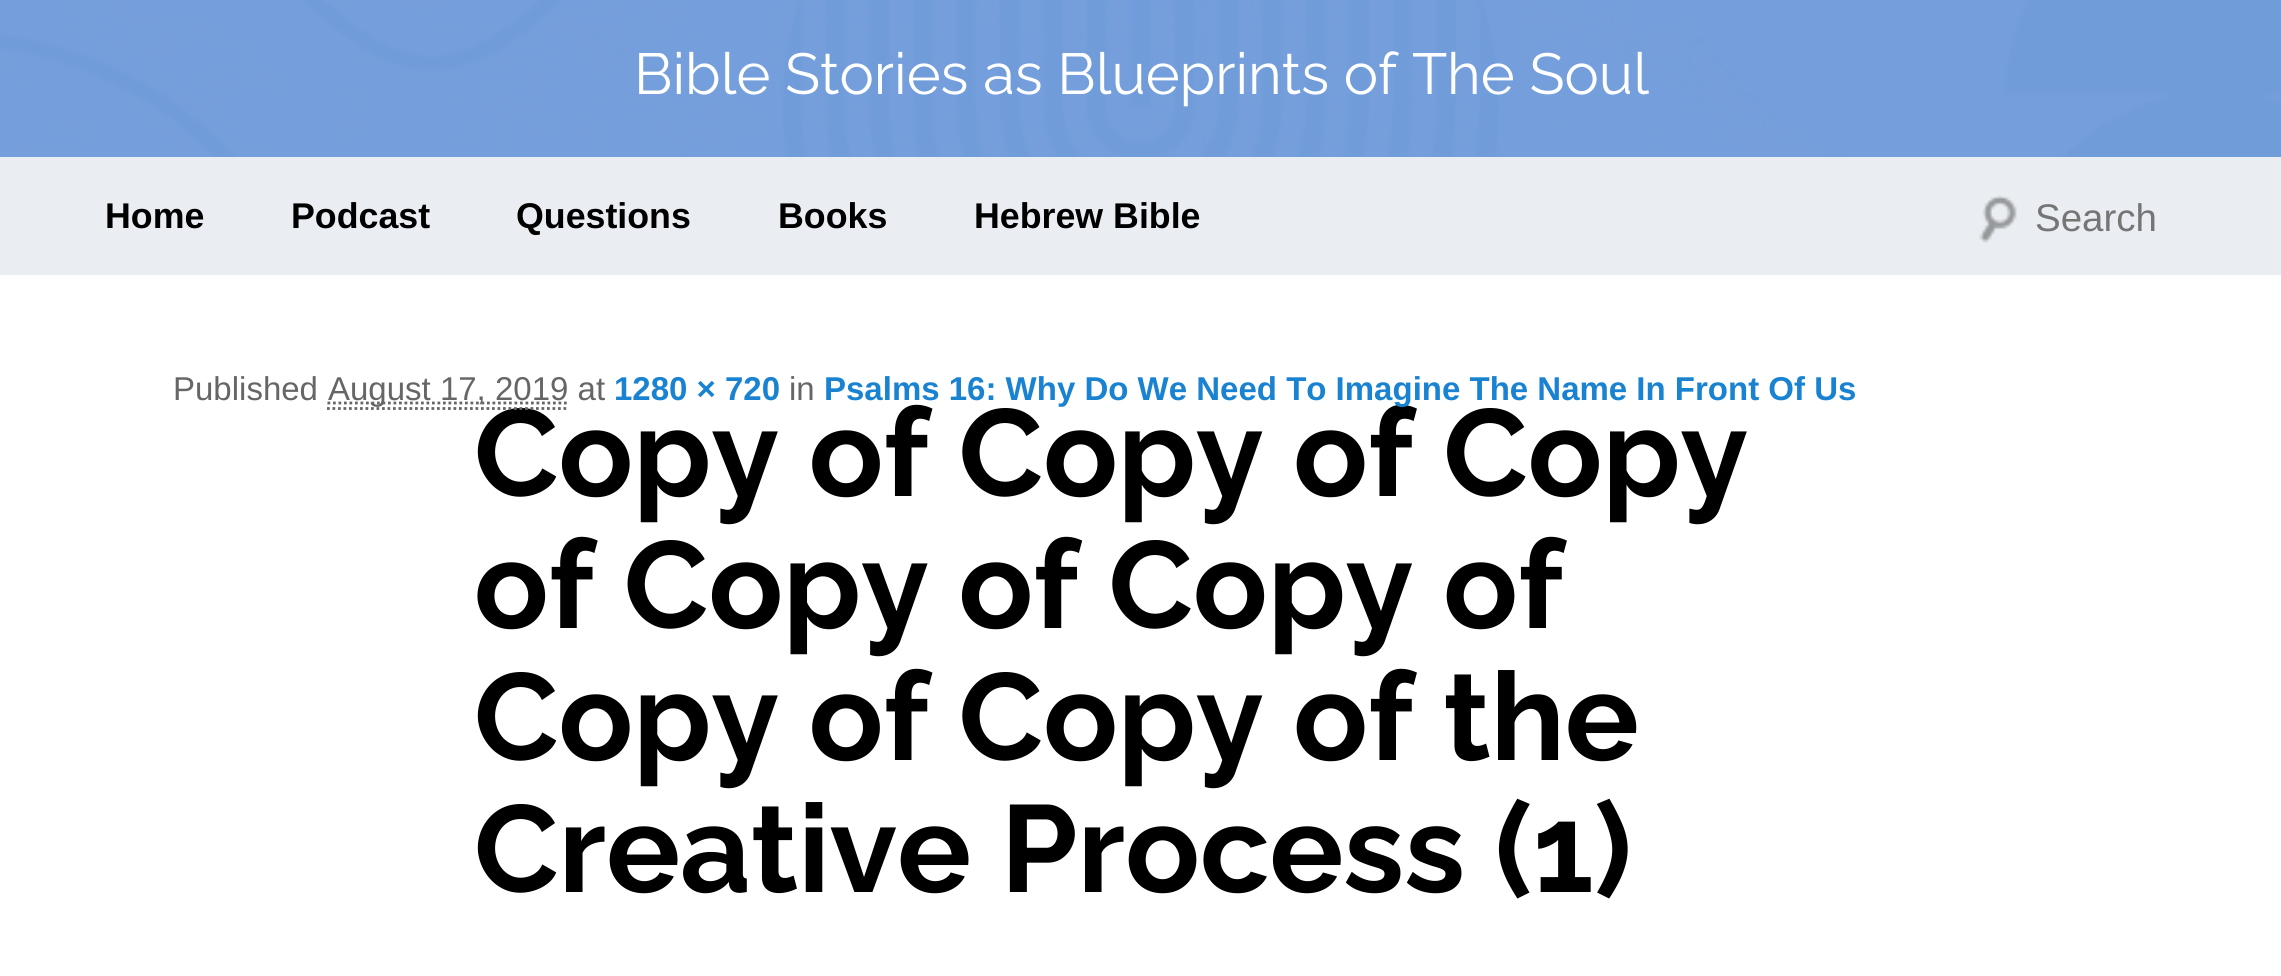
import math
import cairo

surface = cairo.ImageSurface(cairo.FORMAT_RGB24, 2281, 976)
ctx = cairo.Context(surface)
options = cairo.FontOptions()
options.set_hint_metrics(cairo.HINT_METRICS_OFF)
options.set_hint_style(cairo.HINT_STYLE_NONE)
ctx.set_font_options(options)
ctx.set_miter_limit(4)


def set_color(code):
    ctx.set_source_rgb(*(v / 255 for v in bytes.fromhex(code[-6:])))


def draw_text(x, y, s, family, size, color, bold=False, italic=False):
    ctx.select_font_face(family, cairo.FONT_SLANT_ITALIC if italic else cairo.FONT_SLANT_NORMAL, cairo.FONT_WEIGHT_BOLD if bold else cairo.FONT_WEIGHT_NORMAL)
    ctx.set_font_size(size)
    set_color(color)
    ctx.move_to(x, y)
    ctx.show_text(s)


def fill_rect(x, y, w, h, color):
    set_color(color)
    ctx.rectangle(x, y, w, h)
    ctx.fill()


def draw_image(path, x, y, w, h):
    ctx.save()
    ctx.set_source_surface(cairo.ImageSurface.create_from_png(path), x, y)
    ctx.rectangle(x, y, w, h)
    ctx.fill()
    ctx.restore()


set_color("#ffffff")
ctx.paint()
draw_image("assets/img1.png", 0, 0, 2281, 157)
ctx.set_source_rgba(0.408, 0.584, 0.847, 0.9)
ctx.rectangle(0, 0, 2281, 157)
ctx.fill()
draw_text(634, 94, "Bible Stories as Blueprints of The Soul", "Raleway", 57.75, "#ffffff")
fill_rect(0, 157, 2281, 118, "#eaedf1")
draw_text(105, 228, "Home", "Liberation Sans", 35.75, "#000000", bold=True)
draw_text(291, 228, "Podcast", "Liberation Sans", 35.75, "#000000", bold=True)
draw_text(516, 228, "Questions", "Liberation Sans", 35.75, "#000000", bold=True)
draw_text(778, 228, "Books", "Liberation Sans", 35.75, "#000000", bold=True)
draw_text(974, 228, "Hebrew Bible", "Liberation Sans", 35.75, "#000000", bold=True)
draw_image("assets/img2.png", 1979, 195, 38, 48)
draw_text(2035, 231, "Search", "Liberation Sans", 38.5, "#757575")
draw_text(173, 400, "Published", "Liberation Sans", 33, "#666666")
draw_text(474, 496, "Copy of Copy of Copy", "Raleway", 123.25, "#000000", bold=True)
ctx.new_path()
ctx.move_to(327.5, 403)
ctx.line_to(568, 403)
set_color("#666666")
ctx.set_line_width(2.8)
ctx.set_dash([2.75, 2.75])
ctx.stroke()
draw_text(328, 400, "August 17, 2019 at", "Liberation Sans", 33, "#666666")
ctx.new_path()
ctx.move_to(327, 408.5)
ctx.line_to(569, 408.5)
ctx.stroke()
draw_text(614, 400, "1280 × 720", "Liberation Sans", 33, "#1982d1", bold=True)
draw_text(789, 400, "in", "Liberation Sans", 33, "#666666")
draw_text(824, 400, "Psalms 16: Why Do We Need To Imagine The Name In Front Of Us", "Liberation Sans", 33, "#1982d1", bold=True)
draw_text(474, 628, "of Copy of Copy of", "Raleway", 123.25, "#000000", bold=True)
draw_text(474, 760, "Copy of Copy of the", "Raleway", 123.25, "#000000", bold=True)
draw_text(474, 892, "Creative Process (1)", "Raleway", 123.25, "#000000", bold=True)
surface.write_to_png("output.png")
